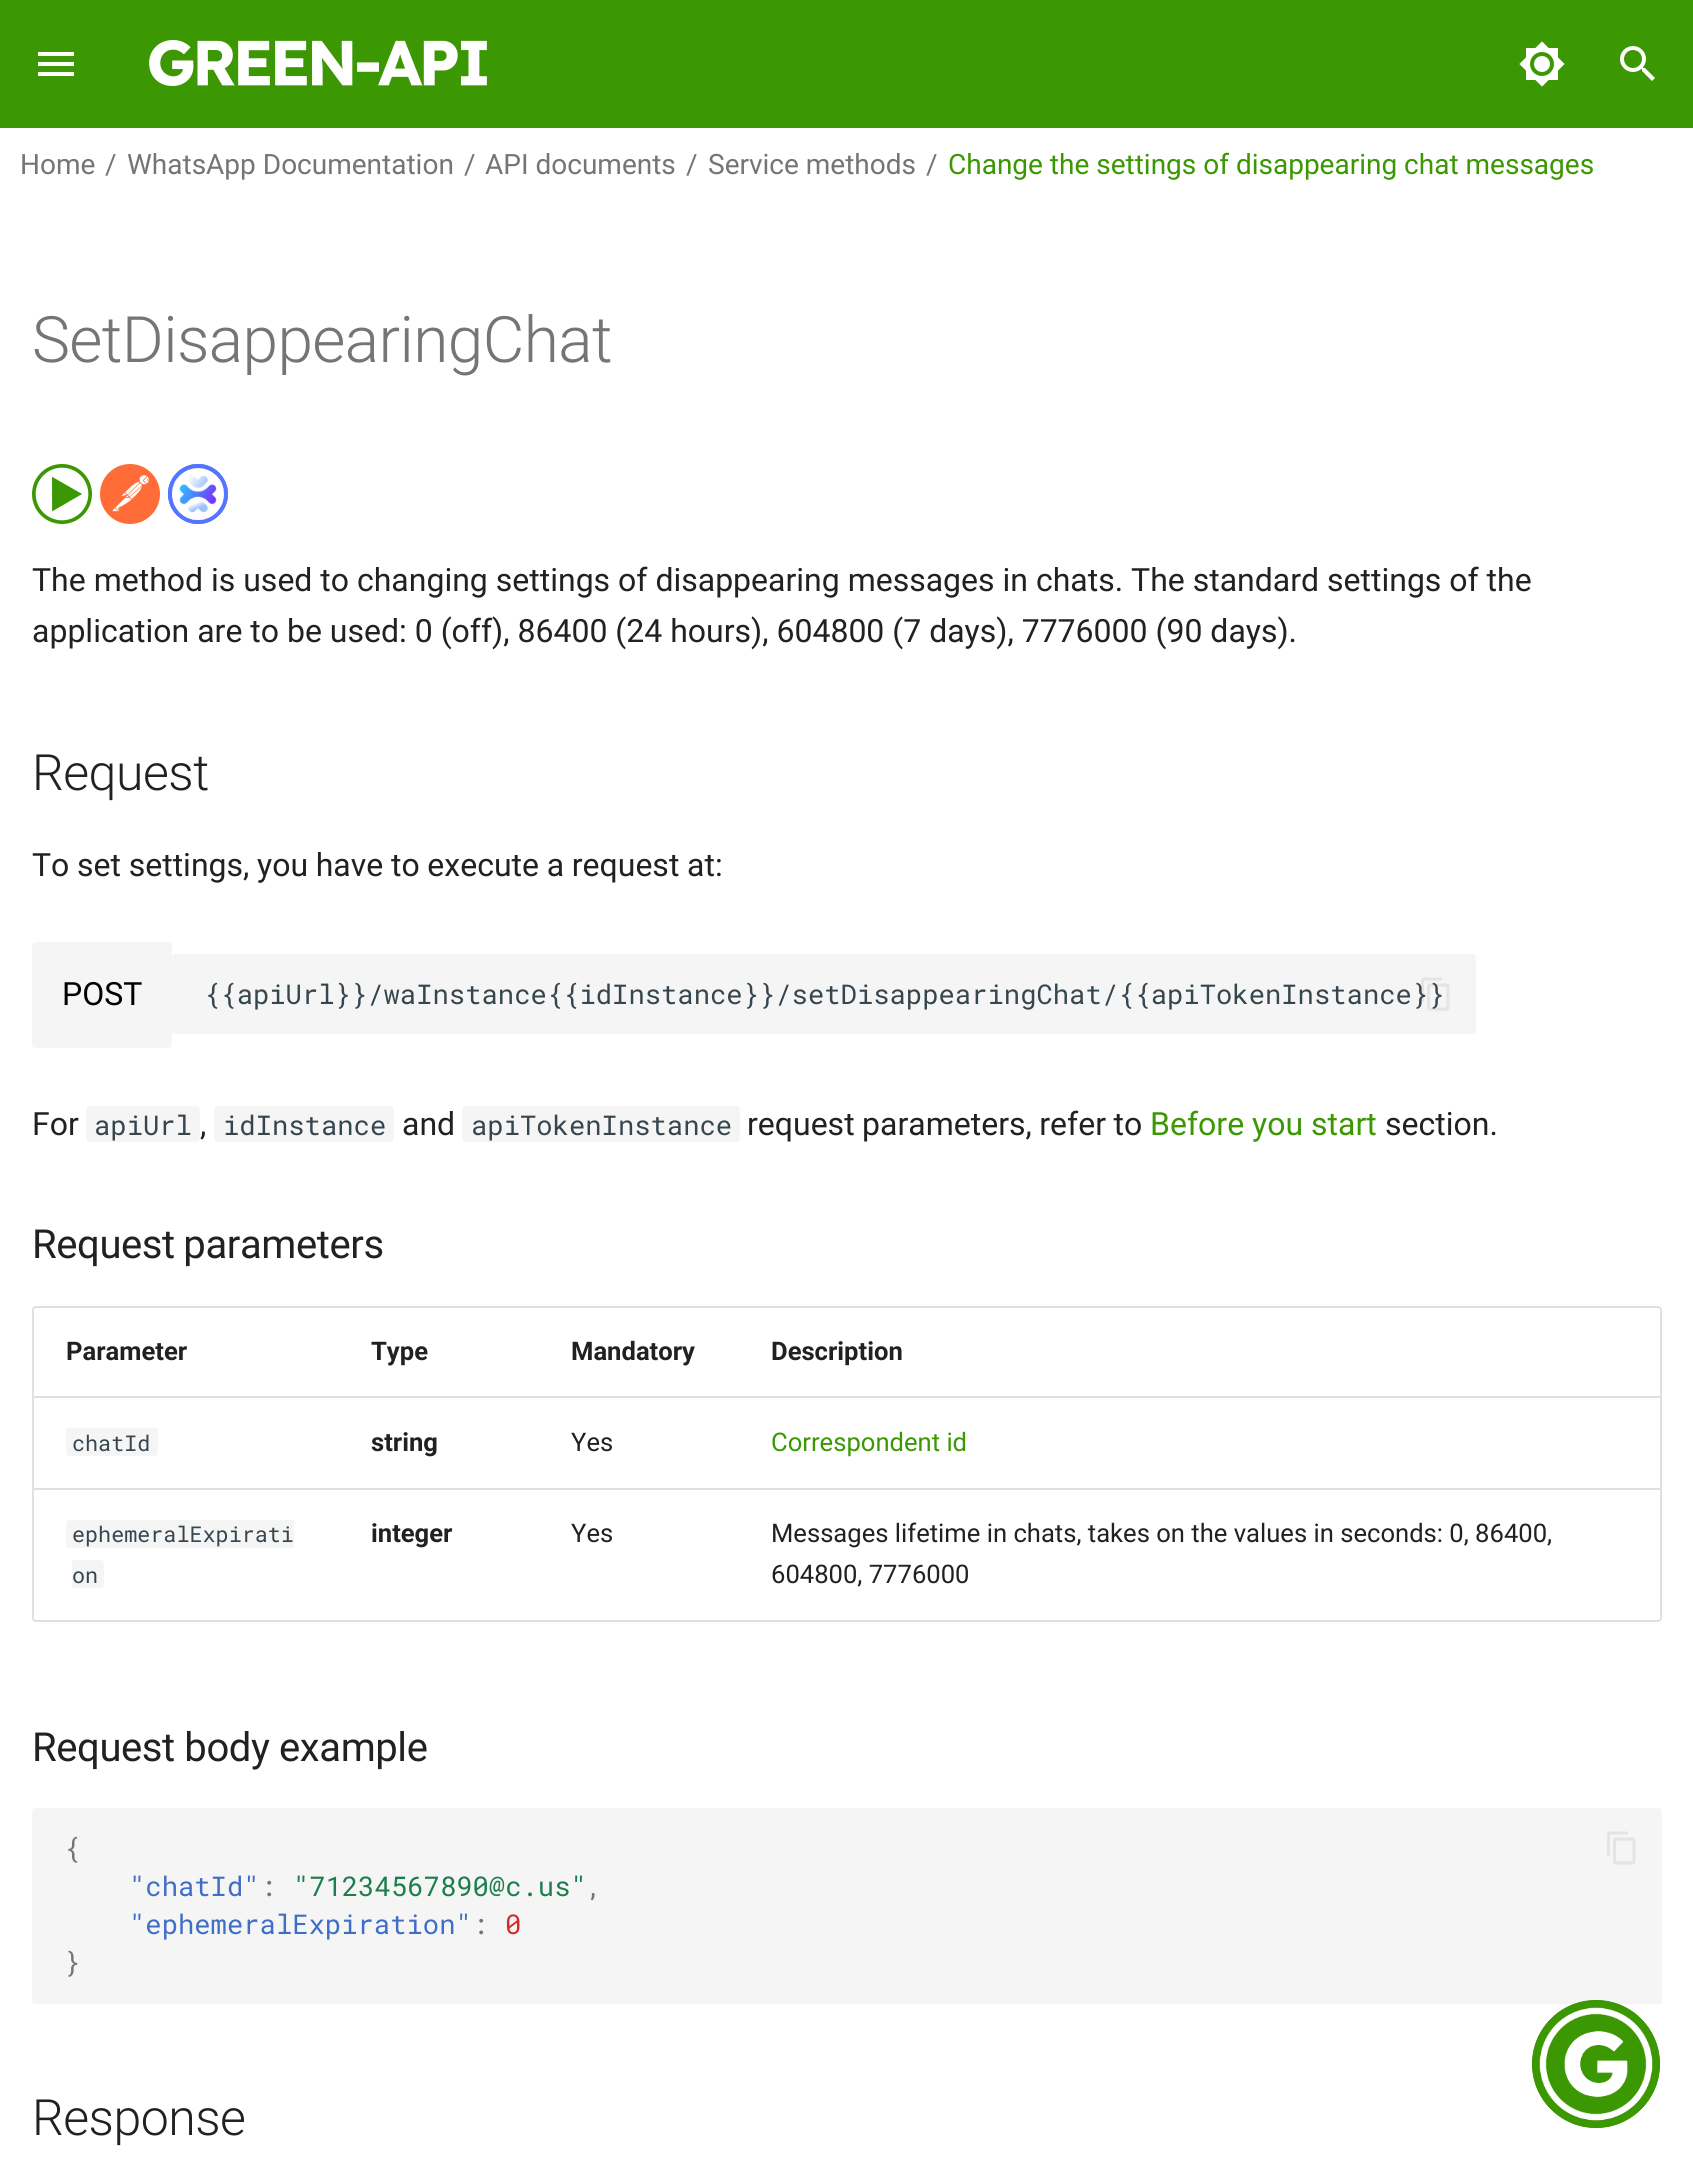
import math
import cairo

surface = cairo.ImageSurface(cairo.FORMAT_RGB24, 1693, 2171)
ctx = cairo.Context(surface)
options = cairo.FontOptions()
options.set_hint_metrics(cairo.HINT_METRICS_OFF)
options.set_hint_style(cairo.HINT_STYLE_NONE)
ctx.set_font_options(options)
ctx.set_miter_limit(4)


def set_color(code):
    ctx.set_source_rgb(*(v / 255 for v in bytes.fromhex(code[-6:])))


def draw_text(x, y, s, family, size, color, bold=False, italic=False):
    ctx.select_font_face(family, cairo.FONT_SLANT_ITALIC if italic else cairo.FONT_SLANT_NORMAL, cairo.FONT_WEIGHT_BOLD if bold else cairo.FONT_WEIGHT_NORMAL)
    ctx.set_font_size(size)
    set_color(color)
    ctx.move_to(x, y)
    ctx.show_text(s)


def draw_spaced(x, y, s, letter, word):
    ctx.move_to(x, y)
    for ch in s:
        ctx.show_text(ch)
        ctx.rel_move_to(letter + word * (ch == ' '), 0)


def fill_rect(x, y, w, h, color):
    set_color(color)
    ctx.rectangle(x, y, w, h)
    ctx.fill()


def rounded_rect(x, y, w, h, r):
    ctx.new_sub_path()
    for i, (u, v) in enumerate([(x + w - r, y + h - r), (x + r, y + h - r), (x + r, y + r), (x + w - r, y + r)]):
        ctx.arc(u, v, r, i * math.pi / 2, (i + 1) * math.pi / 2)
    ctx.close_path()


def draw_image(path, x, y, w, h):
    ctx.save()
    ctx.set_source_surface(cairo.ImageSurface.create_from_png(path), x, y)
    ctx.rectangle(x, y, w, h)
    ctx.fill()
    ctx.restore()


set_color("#ffffff")
ctx.paint()
fill_rect(0, 0, 1693, 128, "#3b9702")
draw_image("assets/img1.png", 38, 52, 36, 24)
draw_image("assets/img2.png", 149, 40, 338, 46)
draw_image("assets/img3.png", 1519, 41, 46, 46)
draw_image("assets/img4.png", 1620, 46, 35, 35)
draw_text(20, 174, "Home", "Roboto", 28, "#757575")
draw_text(105, 174, "/", "Roboto", 28, "#757575")
draw_text(127, 174, "WhatsApp Documentation", "Roboto", 28, "#757575")
draw_text(464, 174, "/", "Roboto", 28, "#757575")
draw_text(485, 174, "API documents", "Roboto", 28, "#757575")
draw_text(686, 174, "/", "Roboto", 28, "#757575")
draw_text(708, 174, "Service methods", "Roboto", 28, "#757575")
draw_text(926, 174, "/", "Roboto", 28, "#757575")
draw_text(948, 174, "Change the settings of disappearing chat messages", "Roboto", 28, "#3b9702")
ctx.select_font_face("Roboto Light")
ctx.set_font_size(64)
set_color("#757575")
draw_spaced(32, 362, "SetDisappearingChat", -0.6, 0)
draw_image("assets/img5.png", 32, 464, 60, 60)
draw_image("assets/img6.png", 100, 464, 60, 60)
draw_image("assets/img7.png", 168, 464, 60, 60)
draw_text(32, 591, "The method is used to changing settings of disappearing messages in chats. The standard settings of the", "Roboto", 32, "#212121")
draw_text(32, 642, "application are to be used: 0 (off), 86400 (24 hours), 604800 (7 days), 7776000 (90 days).", "Roboto", 32, "#212121")
ctx.select_font_face("Roboto Light")
ctx.set_font_size(50)
draw_spaced(32, 790, "Request", -0.5, 0)
ctx.select_font_face("Roboto")
ctx.set_font_size(32)
draw_spaced(32, 876, "To set settings, you have to execute a request at:", 0, -0.25)
set_color("#f5f5f5")
rounded_rect(32, 942, 140, 106, 4)
ctx.fill()
draw_text(62, 1005, "POST", "Roboto", 32, "#000000")
set_color("#f5f5f5")
rounded_rect(172, 954, 1304, 80, 4)
ctx.fill()
draw_text(204, 1004, "{{apiUrl}}/waInstance{{idInstance}}/setDisappearingChat/{{apiTokenInstance}}", "Roboto Mono", 27.2, "#36464e")
draw_image("assets/img8.png", 1421, 977, 29, 34)
draw_text(32, 1135, "For", "Roboto", 32, "#212121")
set_color("#f5f5f5")
rounded_rect(86, 1106, 114, 36, 4)
ctx.fill()
draw_text(94, 1135, "apiUrl", "Roboto Mono", 27.2, "#36464e")
draw_text(200, 1135, ",", "Roboto", 32, "#212121")
set_color("#f5f5f5")
rounded_rect(214, 1106, 180, 36, 4)
ctx.fill()
draw_text(223, 1135, "idInstance", "Roboto Mono", 27.2, "#36464e")
draw_text(402, 1135, "and", "Roboto", 32, "#212121")
set_color("#f5f5f5")
rounded_rect(462, 1106, 278, 36, 4)
ctx.fill()
draw_text(471, 1135, "apiTokenInstance", "Roboto Mono", 27.2, "#36464e")
ctx.select_font_face("Roboto")
ctx.set_font_size(32)
set_color("#212121")
draw_spaced(747, 1135, "request parameters, refer to", 0, -0.5)
draw_text(1150, 1135, "Before you start", "Roboto", 32, "#3b9702")
draw_text(1385, 1135, "section.", "Roboto", 32, "#212121")
ctx.set_font_size(40)
draw_spaced(32, 1258, "Request parameters", -0.4, -1)
rounded_rect(33, 1307, 1628, 314, 3)
set_color("#e0e0e0")
ctx.stroke()
draw_text(66, 1360, "Parameter", "Roboto", 25.6, "#212121", bold=True)
draw_text(371, 1360, "Type", "Roboto", 25.6, "#212121", bold=True)
draw_text(571, 1360, "Mandatory", "Roboto", 25.6, "#212121", bold=True)
draw_text(771, 1360, "Description", "Roboto", 25.6, "#212121", bold=True)
fill_rect(34, 1396, 1626, 2, "#e0e0e0")
set_color("#f5f5f5")
rounded_rect(66, 1428, 92, 28, 4)
ctx.fill()
draw_text(72, 1451, "chatId", "Roboto Mono", 21.75, "#36464e")
draw_text(371, 1451, "string", "Roboto", 25.6, "#212121", bold=True)
draw_text(571, 1451, "Yes", "Roboto", 25.6, "#212121")
draw_text(771, 1451, "Correspondent id", "Roboto", 25.6, "#3b9702")
fill_rect(34, 1488, 1626, 2, "#e0e0e0")
set_color("#f5f5f5")
ctx.new_path()
ctx.move_to(70, 1520)
ctx.line_to(294, 1520)
ctx.line_to(294, 1548)
ctx.line_to(70, 1548)
ctx.curve_to(68, 1548, 66, 1546, 66, 1544)
ctx.line_to(66, 1524)
ctx.curve_to(66, 1522, 68, 1520, 70, 1520)
ctx.close_path()
ctx.fill()
draw_text(72, 1542, "ephemeralExpirati", "Roboto Mono", 21.75, "#36464e")
set_color("#f5f5f5")
ctx.new_path()
ctx.move_to(72, 1560)
ctx.line_to(100, 1560)
ctx.curve_to(102, 1560, 104, 1562, 104, 1564)
ctx.line_to(104, 1584)
ctx.curve_to(104, 1586, 102, 1588, 100, 1588)
ctx.line_to(72, 1588)
ctx.close_path()
ctx.fill()
draw_text(72, 1583, "on", "Roboto Mono", 21.75, "#36464e")
draw_text(371, 1542, "integer", "Roboto", 25.6, "#212121", bold=True)
draw_text(571, 1542, "Yes", "Roboto", 25.6, "#212121")
draw_text(771, 1542, "Messages lifetime in chats, takes on the values in seconds: 0, 86400,", "Roboto", 25.6, "#212121")
draw_text(771, 1583, "604800, 7776000", "Roboto", 25.6, "#212121")
ctx.set_font_size(40)
draw_spaced(32, 1761, "Request body example", -0.4, 0)
set_color("#f5f5f5")
rounded_rect(32, 1808, 1630, 196, 4)
ctx.fill()
draw_text(64, 1858, "{", "Roboto Mono", 27.2, "#757575")
draw_text(129, 1896, "\"chatId\"", "Roboto Mono", 27.2, "#3f6ec6")
draw_text(260, 1896, ":", "Roboto Mono", 27.2, "#757575")
draw_text(293, 1896, "\"71234567890@c.us\"", "Roboto Mono", 27.2, "#1c7d4d")
draw_text(586, 1896, ",", "Roboto Mono", 27.2, "#757575")
draw_text(129, 1934, "\"ephemeralExpiration\"", "Roboto Mono", 27.2, "#3f6ec6")
draw_text(472, 1934, ":", "Roboto Mono", 27.2, "#757575")
draw_text(505, 1934, "0", "Roboto Mono", 27.2, "#d52a2a")
draw_text(64, 1972, "}", "Roboto Mono", 27.2, "#757575")
draw_image("assets/img9.png", 1607, 1831, 29, 34)
ctx.select_font_face("Roboto Light")
ctx.set_font_size(50)
set_color("#212121")
draw_spaced(32, 2135, "Response", -0.5, 0)
set_color("#3b9702")
ctx.new_path()
ctx.arc(1596, 2064, 64, 0, 2 * math.pi)
ctx.fill()
draw_image("assets/img10.png", 1532, 2000, 128, 128)
surface.write_to_png("output.png")
